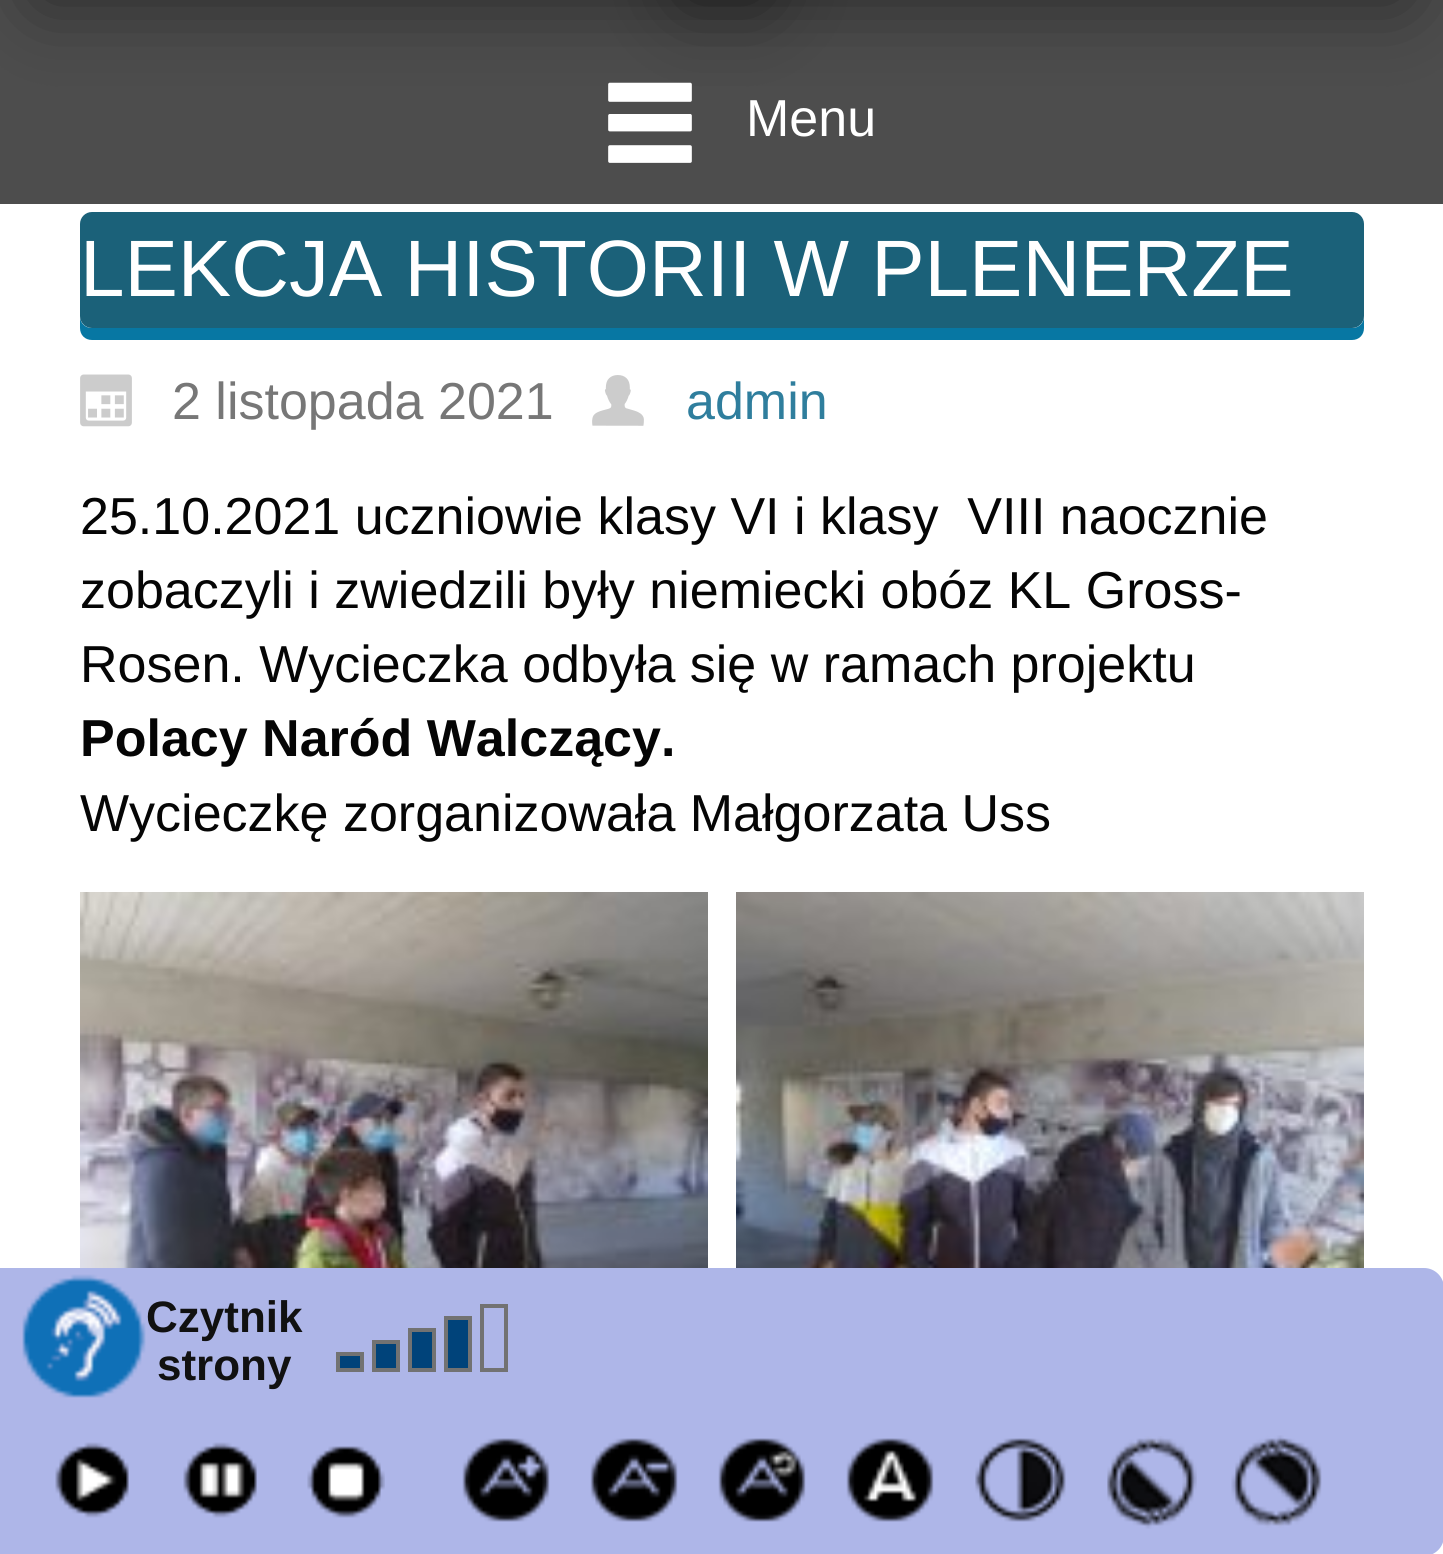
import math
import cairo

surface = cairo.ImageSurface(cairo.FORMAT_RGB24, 1443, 1554)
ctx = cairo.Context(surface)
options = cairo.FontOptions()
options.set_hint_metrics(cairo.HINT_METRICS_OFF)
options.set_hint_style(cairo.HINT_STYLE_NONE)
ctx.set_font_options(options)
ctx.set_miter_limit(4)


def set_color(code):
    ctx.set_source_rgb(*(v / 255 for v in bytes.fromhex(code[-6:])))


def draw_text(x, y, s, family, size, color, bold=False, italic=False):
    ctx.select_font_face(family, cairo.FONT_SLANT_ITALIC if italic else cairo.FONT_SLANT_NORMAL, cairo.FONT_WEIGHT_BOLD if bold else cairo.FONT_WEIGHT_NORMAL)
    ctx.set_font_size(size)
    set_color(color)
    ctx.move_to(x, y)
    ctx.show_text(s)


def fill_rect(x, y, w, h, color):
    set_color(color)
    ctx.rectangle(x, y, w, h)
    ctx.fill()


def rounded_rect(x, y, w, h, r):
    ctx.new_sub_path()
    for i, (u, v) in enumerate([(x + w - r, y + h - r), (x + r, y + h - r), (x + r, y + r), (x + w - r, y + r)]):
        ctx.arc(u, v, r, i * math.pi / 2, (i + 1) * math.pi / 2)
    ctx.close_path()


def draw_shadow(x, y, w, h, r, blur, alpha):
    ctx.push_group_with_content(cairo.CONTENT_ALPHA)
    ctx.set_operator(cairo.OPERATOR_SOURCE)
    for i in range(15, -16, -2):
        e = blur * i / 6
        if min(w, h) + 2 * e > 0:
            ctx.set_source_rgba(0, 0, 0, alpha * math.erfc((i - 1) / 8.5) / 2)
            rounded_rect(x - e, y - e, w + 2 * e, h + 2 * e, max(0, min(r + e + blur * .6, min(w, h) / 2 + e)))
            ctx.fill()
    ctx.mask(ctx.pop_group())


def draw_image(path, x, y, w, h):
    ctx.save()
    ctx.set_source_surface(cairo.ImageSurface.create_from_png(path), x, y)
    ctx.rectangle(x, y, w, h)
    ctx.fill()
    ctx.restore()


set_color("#ffffff")
ctx.paint()
fill_rect(0, 0, 1443, 204, "#4d4d4d")
set_color("#000000")
draw_shadow(40, -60, 724, 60, 0, 40, 0.5)
draw_shadow(684, -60, 720, 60, 0, 40, 0.5)
draw_image("assets/img1.png", 608, 82, 84, 81)
draw_text(746, 136, "Menu", "Liberation Sans", 52, "#ffffff")
set_color("#0777a3")
ctx.new_path()
ctx.move_to(80, 316)
ctx.line_to(80, 328)
ctx.curve_to(80, 335, 85, 340, 92, 340)
ctx.line_to(1352, 340)
ctx.curve_to(1359, 340, 1364, 335, 1364, 328)
ctx.line_to(1364, 316)
ctx.curve_to(1364, 323, 1359, 328, 1352, 328)
ctx.line_to(92, 328)
ctx.curve_to(85, 328, 80, 323, 80, 316)
ctx.close_path()
ctx.fill()
set_color("#1b6179")
rounded_rect(80, 212, 1284, 116, 12)
ctx.fill()
draw_text(80, 296, "LEKCJA HISTORII W PLENERZE", "Liberation Sans", 80, "#ffffff")
draw_image("assets/img2.png", 80, 374, 52, 53)
draw_text(172, 419, "2 listopada 2021", "Liberation Sans", 52, "#777777")
draw_image("assets/img3.png", 592, 375, 52, 51)
draw_text(686, 419, "admin", "Liberation Sans", 52, "#2f7e9d")
draw_text(80, 534, "25.10.2021 uczniowie klasy VI i klasy  VIII naocznie", "Liberation Sans", 52, "#050505")
draw_text(80, 608, "zobaczyli i zwiedzili były niemiecki obóz KL Gross-", "Liberation Sans", 52, "#050505")
draw_text(80, 682, "Rosen. Wycieczka odbyła się w ramach projektu", "Liberation Sans", 52, "#050505")
draw_text(80, 756, "Polacy Naród Walczący.", "Liberation Sans", 52, "#050505", bold=True)
draw_text(80, 831, "Wycieczkę zorganizowała Małgorzata Uss", "Liberation Sans", 52, "#050505")
draw_image("assets/img4.png", 80, 892, 628, 376)
draw_image("assets/img5.png", 736, 892, 628, 376)
set_color("#aeb6e8")
ctx.new_path()
ctx.move_to(0, 1268)
ctx.line_to(1424, 1268)
ctx.curve_to(1435, 1268, 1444, 1277, 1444, 1288)
ctx.line_to(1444, 1536)
ctx.curve_to(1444, 1547, 1435, 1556, 1424, 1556)
ctx.line_to(0, 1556)
ctx.close_path()
ctx.fill()
draw_image("assets/img6.png", 22, 1274, 124, 124)
draw_text(146, 1332, "Czytnik", "Liberation Sans", 44, "#111111", bold=True)
draw_text(157, 1380, "strony", "Liberation Sans", 44, "#111111", bold=True)
set_color("#00437a")
ctx.rectangle(338, 1354, 24, 16)
ctx.fill_preserve()
set_color("#727272")
ctx.set_line_width(4)
ctx.stroke()
set_color("#00437a")
ctx.rectangle(374, 1342, 24, 28)
ctx.fill_preserve()
set_color("#727272")
ctx.stroke()
set_color("#00437a")
ctx.rectangle(410, 1330, 24, 40)
ctx.fill_preserve()
set_color("#727272")
ctx.stroke()
set_color("#00437a")
ctx.rectangle(446, 1318, 24, 52)
ctx.fill_preserve()
set_color("#727272")
ctx.stroke()
ctx.rectangle(482, 1306, 24, 64)
ctx.stroke()
draw_image("assets/img7.png", 55, 1442, 74, 76)
draw_image("assets/img8.png", 183, 1442, 74, 76)
draw_image("assets/img9.png", 307, 1446, 78, 72)
draw_image("assets/img10.png", 462, 1438, 88, 84)
draw_image("assets/img11.png", 590, 1438, 88, 84)
draw_image("assets/img12.png", 718, 1438, 88, 84)
draw_image("assets/img13.png", 846, 1438, 88, 84)
draw_image("assets/img14.png", 975, 1438, 91, 84)
draw_image("assets/img15.png", 1107, 1436, 90, 93)
draw_image("assets/img16.png", 1231, 1435, 91, 93)
surface.write_to_png("output.png")
